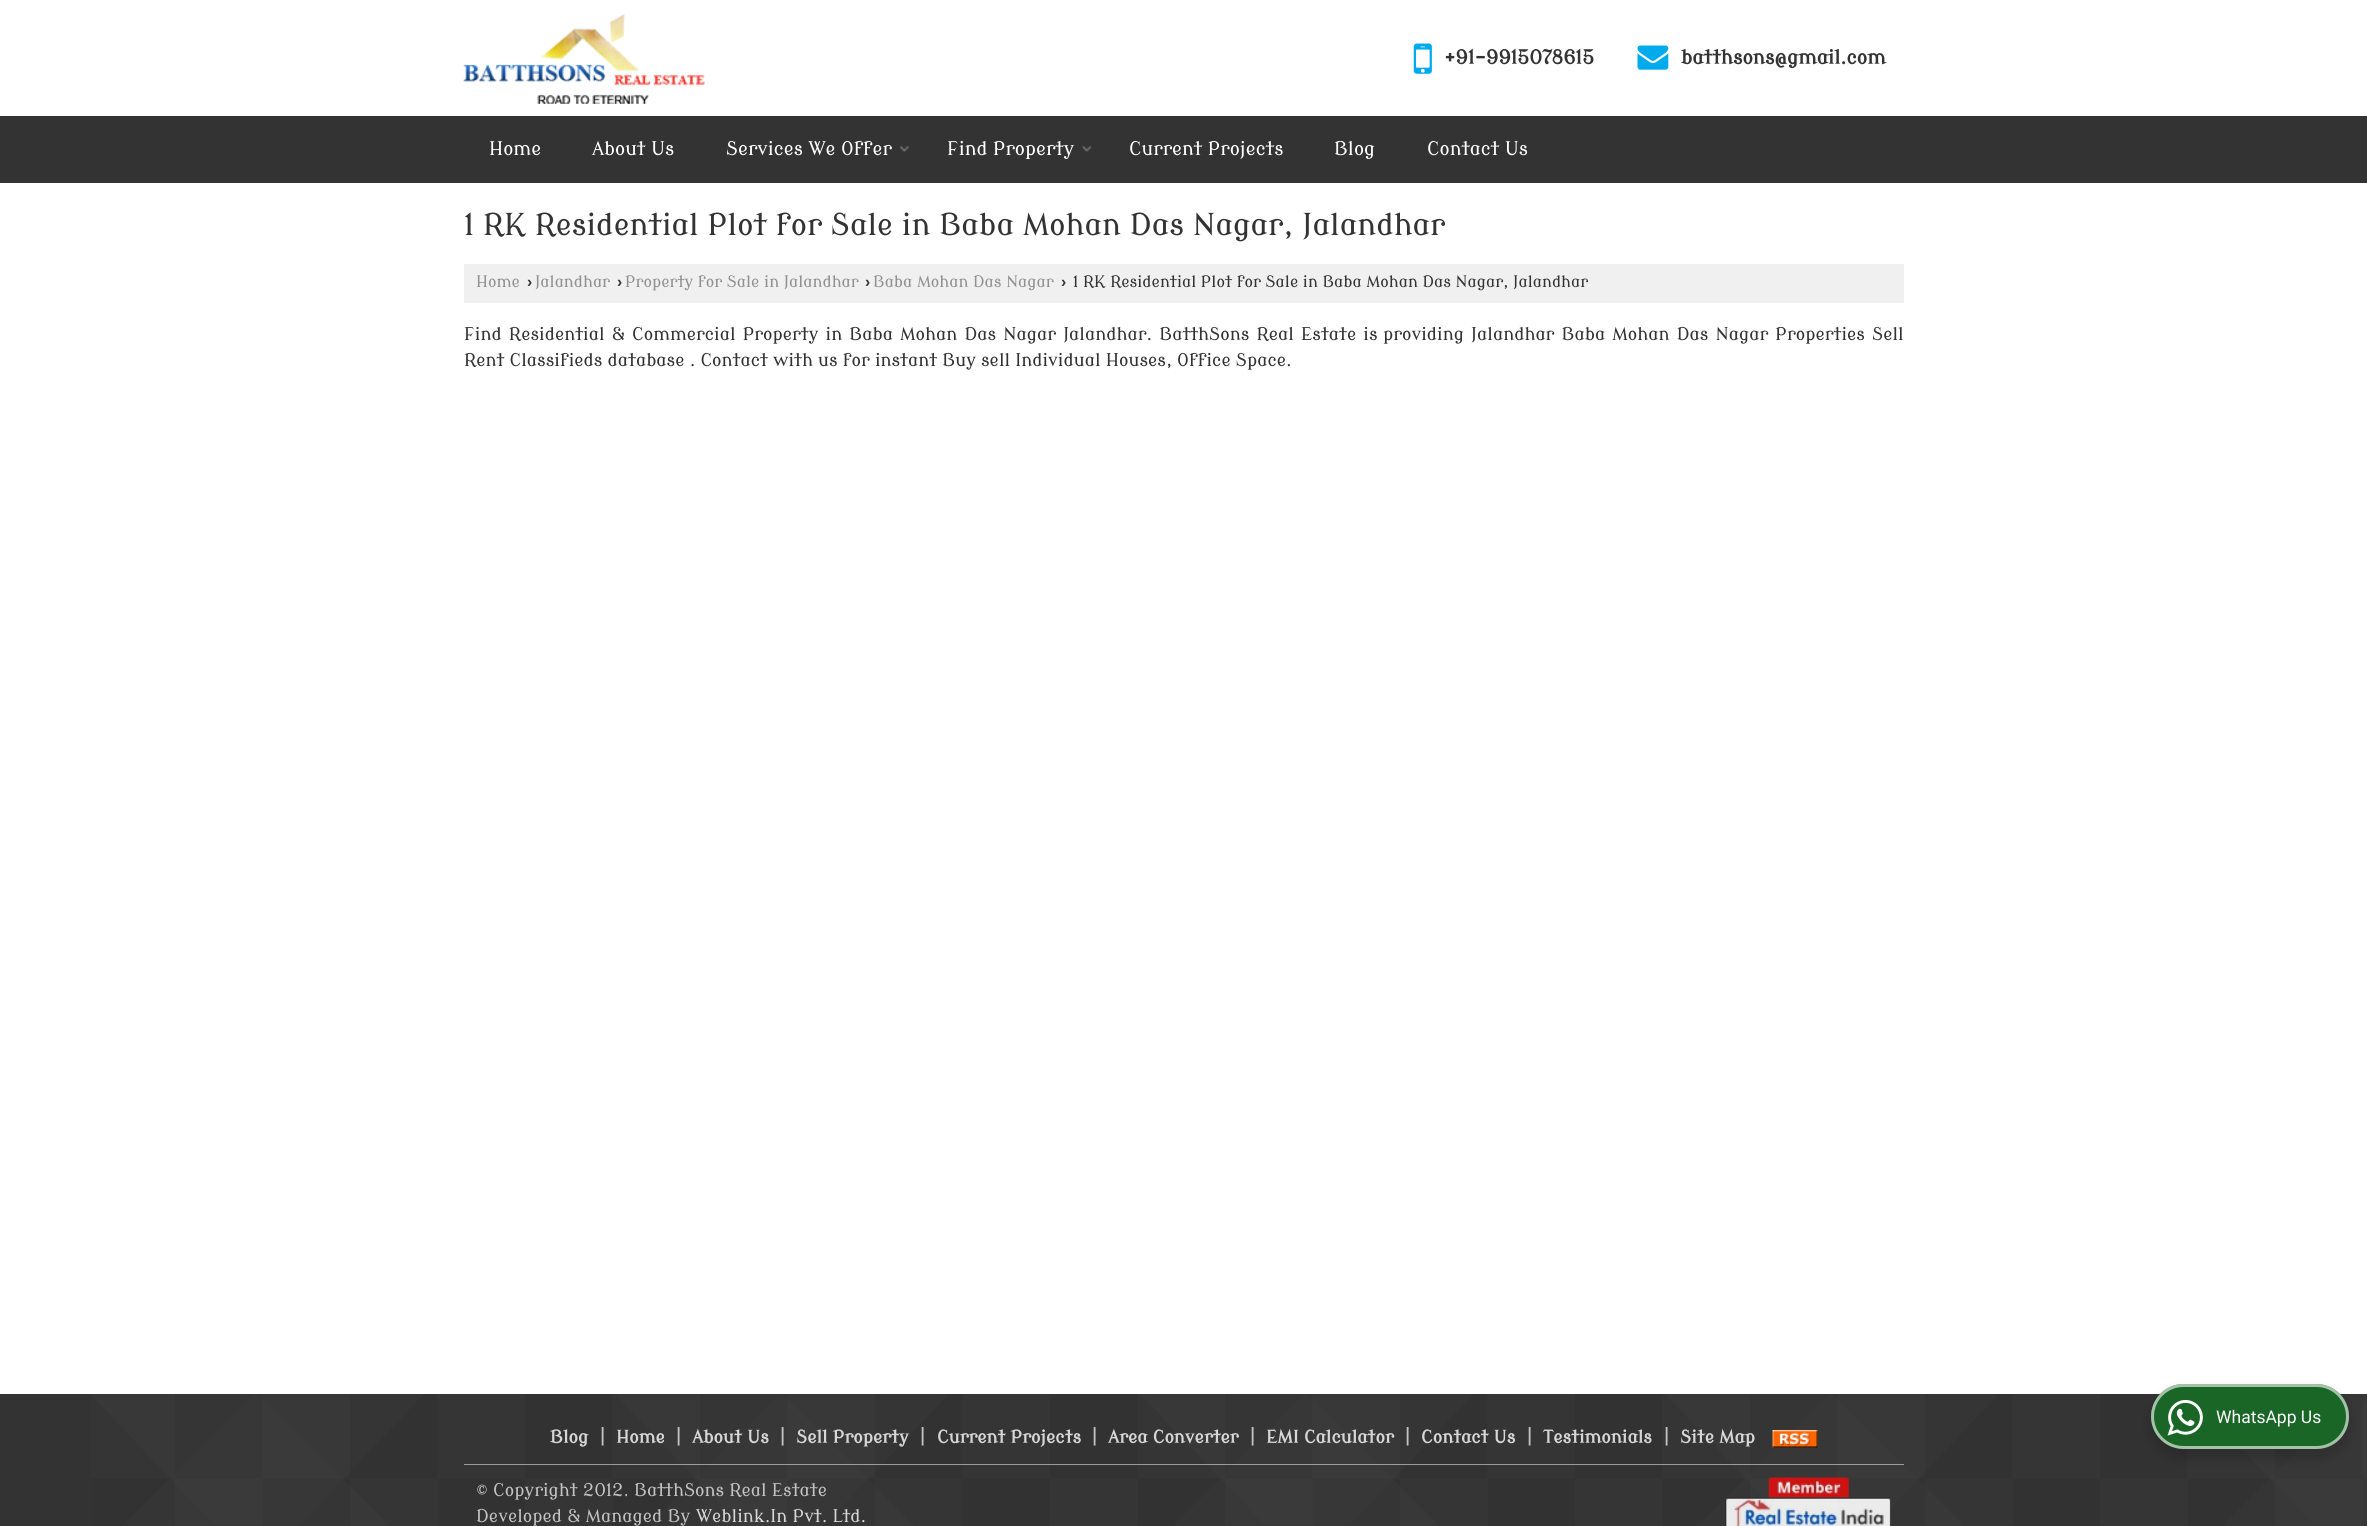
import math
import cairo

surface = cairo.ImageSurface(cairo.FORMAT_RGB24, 2367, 1526)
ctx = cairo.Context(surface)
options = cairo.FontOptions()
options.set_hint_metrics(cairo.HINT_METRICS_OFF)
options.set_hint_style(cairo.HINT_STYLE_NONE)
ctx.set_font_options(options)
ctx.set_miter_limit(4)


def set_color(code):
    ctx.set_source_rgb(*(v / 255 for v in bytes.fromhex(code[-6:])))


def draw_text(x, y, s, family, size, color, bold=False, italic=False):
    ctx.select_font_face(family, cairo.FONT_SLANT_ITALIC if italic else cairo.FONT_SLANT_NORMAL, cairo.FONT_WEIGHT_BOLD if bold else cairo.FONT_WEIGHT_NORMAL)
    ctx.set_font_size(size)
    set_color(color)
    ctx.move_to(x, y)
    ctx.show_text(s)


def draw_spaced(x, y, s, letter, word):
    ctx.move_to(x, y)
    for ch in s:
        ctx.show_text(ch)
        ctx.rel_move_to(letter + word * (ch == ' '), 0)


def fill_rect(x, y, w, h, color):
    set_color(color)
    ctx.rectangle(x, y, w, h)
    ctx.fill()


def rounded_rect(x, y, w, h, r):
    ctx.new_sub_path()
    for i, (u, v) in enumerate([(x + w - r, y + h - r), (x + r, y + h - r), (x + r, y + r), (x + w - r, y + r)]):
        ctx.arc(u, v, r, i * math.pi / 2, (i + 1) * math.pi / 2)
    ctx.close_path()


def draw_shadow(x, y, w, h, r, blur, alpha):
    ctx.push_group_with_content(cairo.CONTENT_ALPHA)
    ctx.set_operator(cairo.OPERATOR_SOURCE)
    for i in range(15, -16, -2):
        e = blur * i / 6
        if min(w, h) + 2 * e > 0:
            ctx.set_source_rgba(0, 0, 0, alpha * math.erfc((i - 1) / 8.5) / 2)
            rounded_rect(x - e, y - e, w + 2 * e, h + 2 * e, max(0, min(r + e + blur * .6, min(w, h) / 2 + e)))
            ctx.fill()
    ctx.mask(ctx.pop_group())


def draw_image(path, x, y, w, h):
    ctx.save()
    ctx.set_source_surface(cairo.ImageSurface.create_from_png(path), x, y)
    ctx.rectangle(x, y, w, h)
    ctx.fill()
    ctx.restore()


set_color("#ffffff")
ctx.paint()
draw_image("assets/img1.png", 463, 13, 242, 91)
draw_image("assets/img2.png", 1413, 43, 19, 31)
draw_text(1444, 64, "+91-9915078615", "Modern Antiqua", 19.25, "#333333", bold=True)
draw_image("assets/img3.png", 1637, 45, 32, 25)
draw_text(1681, 64, "batthsons@gmail.com", "Modern Antiqua", 19.25, "#333333", bold=True)
fill_rect(0, 116, 2367, 67, "#333333")
draw_text(489, 155, "Home", "Modern Antiqua", 18.75, "#ffffff")
draw_text(592, 155, "About Us", "Modern Antiqua", 18.75, "#ffffff")
draw_text(726, 155, "Services We Offer", "Modern Antiqua", 18.75, "#ffffff")
draw_image("assets/img4.png", 900, 146, 9, 6)
draw_text(947, 155, "Find Property", "Modern Antiqua", 18.75, "#ffffff")
draw_image("assets/img5.png", 1082, 146, 10, 6)
draw_text(1129, 155, "Current Projects", "Modern Antiqua", 18.75, "#ffffff")
draw_text(1334, 155, "Blog", "Modern Antiqua", 18.75, "#ffffff")
draw_text(1427, 155, "Contact Us", "Modern Antiqua", 18.75, "#ffffff")
draw_text(464, 235, "1 RK Residential Plot for Sale in Baba Mohan Das Nagar, Jalandhar", "Modern Antiqua", 30, "#333333")
fill_rect(464, 264, 1440, 39, "#f0f0f0")
draw_text(476, 287, "Home", "Modern Antiqua", 15.75, "#909090")
draw_text(527, 287, "›", "Liberation Sans", 15.75, "#333333", bold=True)
draw_text(535, 287, "Jalandhar", "Modern Antiqua", 15.75, "#909090")
draw_text(617, 287, "›", "Liberation Sans", 15.75, "#333333", bold=True)
draw_text(625, 287, "Property for Sale in Jalandhar", "Modern Antiqua", 15.75, "#909090")
draw_text(865, 287, "›", "Liberation Sans", 15.75, "#333333", bold=True)
draw_text(873, 287, "Baba Mohan Das Nagar", "Modern Antiqua", 15.75, "#909090")
draw_text(1061, 287, "›", "Liberation Sans", 15.75, "#333333", bold=True)
draw_text(1073, 287, "1 RK Residential Plot for Sale in Baba Mohan Das Nagar, Jalandhar", "Modern Antiqua", 15.75, "#333333")
ctx.set_font_size(17.5)
draw_spaced(464, 340, "Find Residential & Commercial Property in Baba Mohan Das Nagar Jalandhar. BatthSons Real Estate is", 0, 2)
draw_spaced(1383, 340, "providing Jalandhar Baba Mohan Das Nagar Properties Sell", 0, 2)
draw_text(464, 366, "Rent Classifieds database . Contact with us for instant Buy sell Individual Houses, Office Space.", "Modern Antiqua", 17.5, "#333333")
fill_rect(0, 1394, 2367, 132, "#333333")
draw_image("assets/img6.png", 91, 1394, 2276, 132)
draw_text(550, 1443, "Blog", "Modern Antiqua", 17.5, "#d6d6d6", bold=True)
draw_text(600, 1443, "|", "Modern Antiqua", 17.5, "#c2c2c2", bold=True)
draw_text(616, 1443, "Home", "Modern Antiqua", 17.5, "#d6d6d6", bold=True)
draw_text(676, 1443, "|", "Modern Antiqua", 17.5, "#c2c2c2", bold=True)
draw_text(692, 1443, "About Us", "Modern Antiqua", 17.5, "#d6d6d6", bold=True)
draw_text(780, 1443, "|", "Modern Antiqua", 17.5, "#c2c2c2", bold=True)
draw_text(796, 1443, "Sell Property", "Modern Antiqua", 17.5, "#d6d6d6", bold=True)
draw_text(920, 1443, "|", "Modern Antiqua", 17.5, "#c2c2c2", bold=True)
draw_text(937, 1443, "Current Projects", "Modern Antiqua", 17.5, "#d6d6d6", bold=True)
draw_text(1092, 1443, "|", "Modern Antiqua", 17.5, "#c2c2c2", bold=True)
draw_text(1108, 1443, "Area Converter", "Modern Antiqua", 17.5, "#d6d6d6", bold=True)
draw_text(1250, 1443, "|", "Modern Antiqua", 17.5, "#c2c2c2", bold=True)
draw_text(1266, 1443, "EMI Calculator", "Modern Antiqua", 17.5, "#d6d6d6", bold=True)
draw_text(1405, 1443, "|", "Modern Antiqua", 17.5, "#c2c2c2", bold=True)
draw_text(1421, 1443, "Contact Us", "Modern Antiqua", 17.5, "#d6d6d6", bold=True)
draw_text(1527, 1443, "|", "Modern Antiqua", 17.5, "#c2c2c2", bold=True)
draw_text(1543, 1443, "Testimonials", "Modern Antiqua", 17.5, "#d6d6d6", bold=True)
draw_text(1664, 1443, "|", "Modern Antiqua", 17.5, "#c2c2c2", bold=True)
draw_text(1680, 1443, "Site Map", "Modern Antiqua", 17.5, "#d6d6d6", bold=True)
draw_image("assets/img7.png", 1772, 1430, 46, 18)
ctx.set_source_rgba(1, 1, 1, 0.5)
ctx.rectangle(464, 1464, 1440, 1)
ctx.fill()
draw_text(476, 1496, "© Copyright 2012.", "Modern Antiqua", 17.5, "#c2c2c2")
draw_text(634, 1496, "BatthSons Real Estate", "Modern Antiqua", 17.5, "#c2c2c2")
draw_text(476, 1522, "Developed & Managed By", "Modern Antiqua", 17.5, "#c2c2c2")
draw_text(696, 1522, "Weblink.In Pvt. Ltd.", "Modern Antiqua", 17.5, "#d6d6d6")
draw_image("assets/img8.png", 1725, 1477, 166, 49)
set_color("#000000")
draw_shadow(2149, 1389, 202, 70, 35, 5, 0.14)
set_color("#196626")
rounded_rect(2151, 1384, 198, 65, 32.5)
ctx.fill()
rounded_rect(2152.5, 1385.5, 195, 62, 31)
ctx.set_source_rgba(1, 1, 1, 0.6)
ctx.set_line_width(3)
ctx.stroke()
draw_image("assets/img9.png", 2167, 1399, 36, 37)
draw_text(2216, 1423, "WhatsApp Us", "Roboto", 17.5, "#ffffff")
surface.write_to_png("output.png")
